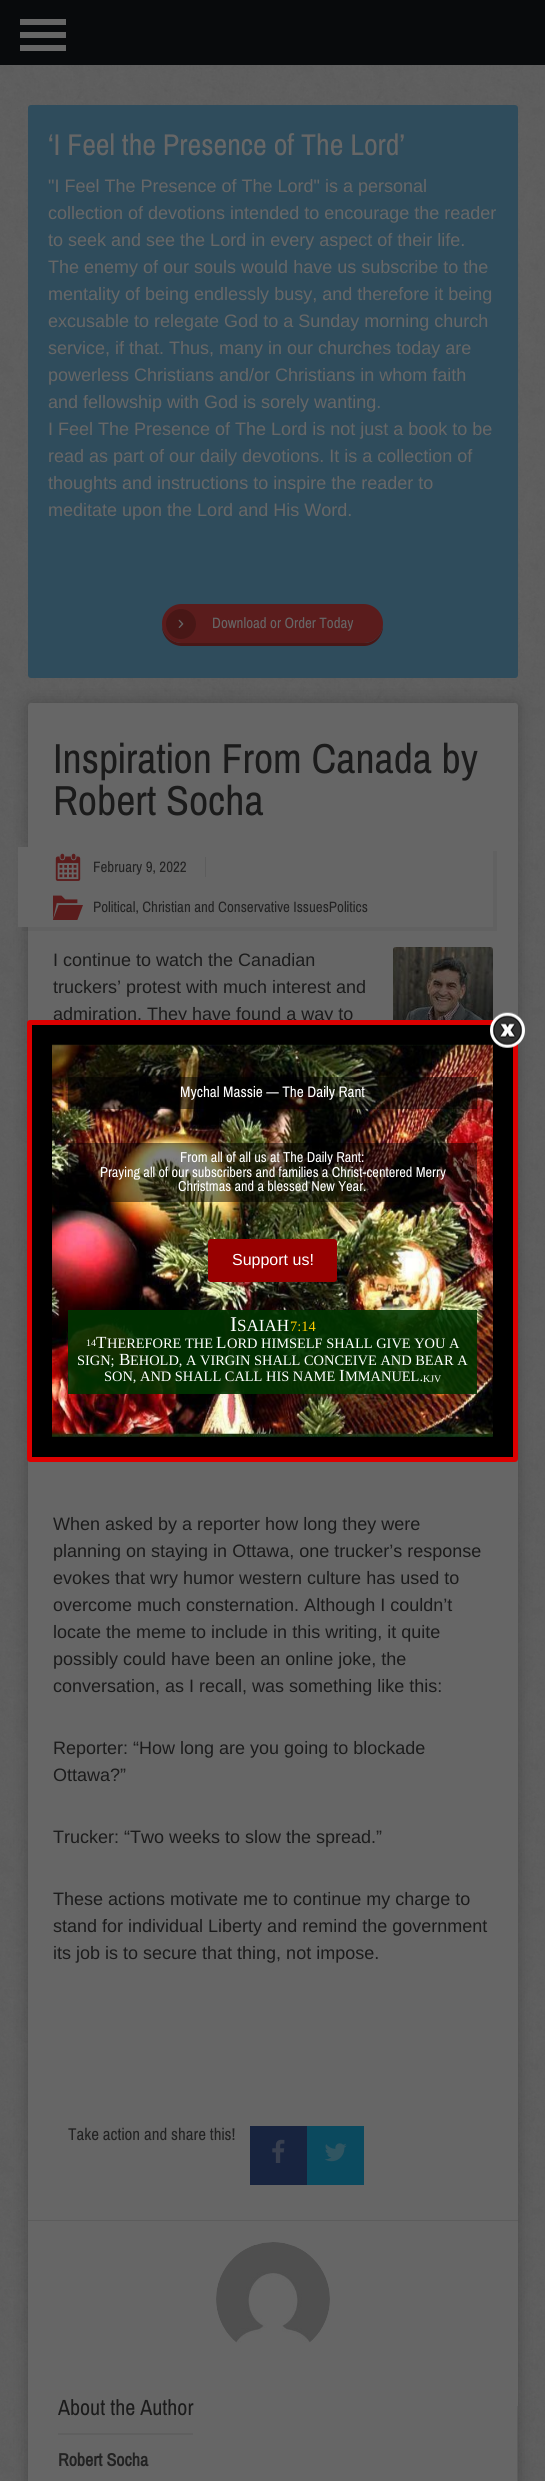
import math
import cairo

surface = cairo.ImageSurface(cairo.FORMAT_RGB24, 545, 2481)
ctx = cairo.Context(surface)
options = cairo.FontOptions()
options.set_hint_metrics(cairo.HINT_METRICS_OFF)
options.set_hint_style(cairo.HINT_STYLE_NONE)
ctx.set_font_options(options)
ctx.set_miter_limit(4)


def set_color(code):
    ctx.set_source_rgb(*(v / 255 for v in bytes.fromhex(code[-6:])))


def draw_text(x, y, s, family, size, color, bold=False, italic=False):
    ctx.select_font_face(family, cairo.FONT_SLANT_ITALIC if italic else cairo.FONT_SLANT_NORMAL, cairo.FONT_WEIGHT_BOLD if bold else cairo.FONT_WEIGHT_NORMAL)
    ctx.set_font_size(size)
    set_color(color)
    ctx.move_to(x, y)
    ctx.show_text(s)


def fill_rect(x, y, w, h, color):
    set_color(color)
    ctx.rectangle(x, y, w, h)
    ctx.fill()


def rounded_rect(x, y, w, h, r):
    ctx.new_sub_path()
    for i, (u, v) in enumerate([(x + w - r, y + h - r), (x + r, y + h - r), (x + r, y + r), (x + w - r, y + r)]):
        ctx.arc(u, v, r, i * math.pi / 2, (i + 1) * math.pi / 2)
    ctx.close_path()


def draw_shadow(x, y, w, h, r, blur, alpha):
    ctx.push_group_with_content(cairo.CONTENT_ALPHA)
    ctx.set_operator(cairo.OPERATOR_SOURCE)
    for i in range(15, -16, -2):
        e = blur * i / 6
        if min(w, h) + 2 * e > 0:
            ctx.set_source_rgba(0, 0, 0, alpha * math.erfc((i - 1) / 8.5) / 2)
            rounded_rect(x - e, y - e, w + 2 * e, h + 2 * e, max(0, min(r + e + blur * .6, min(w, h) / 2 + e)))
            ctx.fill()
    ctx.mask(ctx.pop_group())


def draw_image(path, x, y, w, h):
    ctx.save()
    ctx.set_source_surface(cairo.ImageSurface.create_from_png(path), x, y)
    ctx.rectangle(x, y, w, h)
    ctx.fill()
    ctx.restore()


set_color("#ffffff")
ctx.paint()
draw_image("assets/img1.png", 0, 65, 545, 2416)
fill_rect(0, 0, 545, 65, "#080a0c")
fill_rect(20, 19, 46, 6, "#666666")
fill_rect(20, 32, 46, 6, "#666666")
fill_rect(20, 45, 46, 6, "#666666")
set_color("#000000")
draw_shadow(28, 703, 490, 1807, 3, 8.5, 0.23)
set_color("#2f4c5c")
rounded_rect(28, 105, 490, 573, 3)
ctx.fill()
draw_text(48, 155, "‘I Feel the Presence of The Lord’", "Archivo Narrow", 30, "#666666")
draw_text(48, 192, "\"I Feel The Presence of The Lord\" is a personal", "Liberation Sans", 18, "#666666")
draw_text(48, 219, "collection of devotions intended to encourage the reader", "Liberation Sans", 18, "#666666")
draw_text(48, 246, "to seek and see the Lord in every aspect of their life.", "Liberation Sans", 18, "#666666")
draw_text(48, 273, "The enemy of our souls would have us subscribe to the", "Liberation Sans", 18, "#666666")
draw_text(48, 300, "mentality of being endlessly busy, and therefore it being", "Liberation Sans", 18, "#666666")
draw_text(48, 327, "excusable to relegate God to a Sunday morning church", "Liberation Sans", 18, "#666666")
draw_text(48, 354, "service, if that. Thus, many in our churches today are", "Liberation Sans", 18, "#666666")
draw_text(48, 381, "powerless Christians and/or Christians in whom faith", "Liberation Sans", 18, "#666666")
draw_text(48, 408, "and fellowship with God is sorely wanting.", "Liberation Sans", 18, "#666666")
draw_text(48, 435, "I Feel The Presence of The Lord is not just a book to be", "Liberation Sans", 18, "#666666")
draw_text(48, 462, "read as part of our daily devotions. It is a collection of", "Liberation Sans", 18, "#666666")
draw_text(48, 489, "thoughts and instructions to inspire the reader to", "Liberation Sans", 18, "#666666")
draw_text(48, 516, "meditate upon the Lord and His Word.", "Liberation Sans", 18, "#666666")
set_color("#481716")
ctx.new_path()
ctx.move_to(162, 625)
ctx.line_to(162, 626)
ctx.curve_to(162, 637, 171, 646, 182, 646)
ctx.line_to(364, 646)
ctx.curve_to(374, 646, 383, 637, 383, 626)
ctx.line_to(383, 625)
ctx.curve_to(382, 635, 374, 643, 364, 643)
ctx.line_to(182, 643)
ctx.curve_to(171, 643, 163, 635, 162, 625)
ctx.close_path()
ctx.fill()
set_color("#5a1c1c")
rounded_rect(162, 604, 221, 39, 19.5)
ctx.fill()
set_color("#481716")
ctx.arc(181, 624, 15, 0, 2 * math.pi)
ctx.fill()
draw_image("assets/img2.png", 178, 619, 6, 9)
draw_text(212, 628, "Download or Order Today", "Archivo Narrow", 15, "#666666")
rounded_rect(28, 703, 490, 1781, 3)
ctx.fill()
draw_text(53, 773, "Inspiration From Canada by", "Archivo Narrow", 42, "#1b1b1b")
draw_text(53, 815, "Robert Socha", "Archivo Narrow", 42, "#1b1b1b")
ctx.set_source_rgba(0, 0, 0, 0.05)
ctx.new_path()
ctx.move_to(22, 927)
ctx.line_to(22, 931)
ctx.line_to(497, 931)
ctx.line_to(497, 851)
ctx.line_to(493, 851)
ctx.line_to(493, 927)
ctx.close_path()
ctx.fill()
fill_rect(18, 847, 10, 80, "#666666")
draw_image("assets/img3.png", 55, 853, 26, 28)
draw_text(93, 872, "February 9, 2022", "Archivo Narrow", 15, "#222222")
fill_rect(205, 857, 1, 20, "#5c5c5c")
draw_image("assets/img4.png", 53, 895, 30, 25)
draw_text(93, 912, "Political, Christian and Conservative IssuesPolitics", "Archivo Narrow", 15, "#222222")
draw_image("assets/img5.png", 393, 947, 100, 73)
draw_text(53, 966, "I continue to watch the Canadian", "Liberation Sans", 18, "#1b1b1b")
draw_text(53, 993, "truckers’ protest with much interest and", "Liberation Sans", 18, "#1b1b1b")
draw_text(53, 1020, "admiration. They have found a way to", "Liberation Sans", 18, "#1b1b1b")
draw_text(53, 1530, "When asked by a reporter how long they were", "Liberation Sans", 18, "#1b1b1b")
draw_text(53, 1557, "planning on staying in Ottawa, one trucker’s response", "Liberation Sans", 18, "#1b1b1b")
draw_text(53, 1584, "evokes that wry humor western culture has used to", "Liberation Sans", 18, "#1b1b1b")
draw_text(53, 1611, "overcome much consternation. Although I couldn’t", "Liberation Sans", 18, "#1b1b1b")
draw_text(53, 1638, "locate the meme to include in this writing, it quite", "Liberation Sans", 18, "#1b1b1b")
draw_text(53, 1665, "possibly could have been an online joke, the", "Liberation Sans", 18, "#1b1b1b")
draw_text(53, 1692, "conversation, as I recall, was something like this:", "Liberation Sans", 18, "#1b1b1b")
draw_text(53, 1754, "Reporter: “How long are you going to blockade", "Liberation Sans", 18, "#1b1b1b")
draw_text(53, 1781, "Ottawa?”", "Liberation Sans", 18, "#1b1b1b")
draw_text(53, 1843, "Trucker: “Two weeks to slow the spread.”", "Liberation Sans", 18, "#1b1b1b")
draw_text(53, 1905, "These actions motivate me to continue my charge to", "Liberation Sans", 18, "#1b1b1b")
draw_text(53, 1932, "stand for individual Liberty and remind the government", "Liberation Sans", 18, "#1b1b1b")
draw_text(53, 1959, "its job is to secure that thing, not impose.", "Liberation Sans", 18, "#1b1b1b")
draw_text(68, 2140, "Take action and share this!", "Archivo Narrow", 17, "#222222")
fill_rect(250, 2126, 57, 59, "#17233e")
draw_image("assets/img6.png", 272, 2139, 13, 24)
fill_rect(307, 2126, 57, 59, "#0b495e")
draw_image("assets/img7.png", 325, 2143, 22, 19)
fill_rect(28, 2220, 490, 1, "#5c5c5c")
draw_image("assets/img8.png", 216, 2242, 114, 101)
fill_rect(58, 2433, 135, 2, "#5f5f5f")
draw_text(58, 2415, "About the Author", "Archivo Narrow", 22, "#1b1b1b")
fill_rect(517, 2406, 1, 75, "#5c5c5c")
draw_text(58, 2466, "Robert Socha", "Archivo Narrow", 18, "#222222", bold=True)
set_color("#000000")
rounded_rect(29.5, 1022.5, 486, 437, 0.5)
ctx.fill_preserve()
set_color("#dd0000")
ctx.set_line_width(5)
ctx.stroke()
draw_image("assets/img10.png", 52, 1044, 441, 393)
draw_image("assets/img9.png", 490, 1012, 35, 36)
ctx.set_source_rgba(0, 0, 0, 0.5)
ctx.rectangle(68, 1077, 409, 32)
ctx.fill()
draw_text(180, 1097, "Mychal Massie — The Daily Rant", "Archivo Narrow", 15.25, "#ffffff")
ctx.set_source_rgba(0, 0, 0, 0.5)
ctx.rectangle(68, 1143, 409, 59)
ctx.fill()
draw_text(180, 1162, "From all of all us at The Daily Rant:", "Archivo Narrow", 14.4, "#ffffff")
draw_text(100, 1177, "Praying all of our subscribers and families a Christ-centered Merry", "Archivo Narrow", 14.4, "#ffffff")
draw_text(178, 1191, "Christmas and a blessed New Year.", "Archivo Narrow", 14.4, "#ffffff")
set_color("#990000")
rounded_rect(208, 1239, 129, 43, 3)
ctx.fill()
draw_text(232, 1265, "Support us!", "Liberation Sans", 16, "#ffffff")
ctx.set_source_rgba(0, 0.2, 0, 0.9)
ctx.rectangle(68, 1310, 409, 84)
ctx.fill()
draw_text(230, 1331, "I", "Liberation Serif", 21, "#ffffff")
draw_text(237, 1331, "SAIAH", "Liberation Serif", 17, "#ffffff")
draw_text(290, 1331, "7:14", "Liberation Serif", 14.4, "#ffcc00")
draw_text(86, 1346, "14", "Liberation Serif", 10, "#ffffff")
draw_text(96, 1348, "T", "Liberation Serif", 17, "#ffffff")
draw_text(107, 1348, "HEREFORE THE", "Liberation Serif", 14.4, "#ffffff")
draw_text(216, 1348, "L", "Liberation Serif", 17, "#ffffff")
draw_text(227, 1348, "ORD HIMSELF SHALL GIVE YOU A", "Liberation Serif", 14.4, "#ffffff")
draw_text(77, 1365, "SIGN;", "Liberation Serif", 14.4, "#ffffff")
draw_text(119, 1365, "B", "Liberation Serif", 17, "#ffffff")
draw_text(130, 1365, "EHOLD, A VIRGIN SHALL CONCEIVE AND BEAR A", "Liberation Serif", 14.4, "#ffffff")
draw_text(104, 1381, "SON, AND SHALL CALL HIS NAME", "Liberation Serif", 14.4, "#ffffff")
draw_text(339, 1381, "I", "Liberation Serif", 17, "#ffffff")
draw_text(345, 1381, "MMANUEL.", "Liberation Serif", 14.4, "#ffffff")
draw_text(423, 1382, "KJV", "Liberation Serif", 10, "#ffffff")
surface.write_to_png("output.png")
